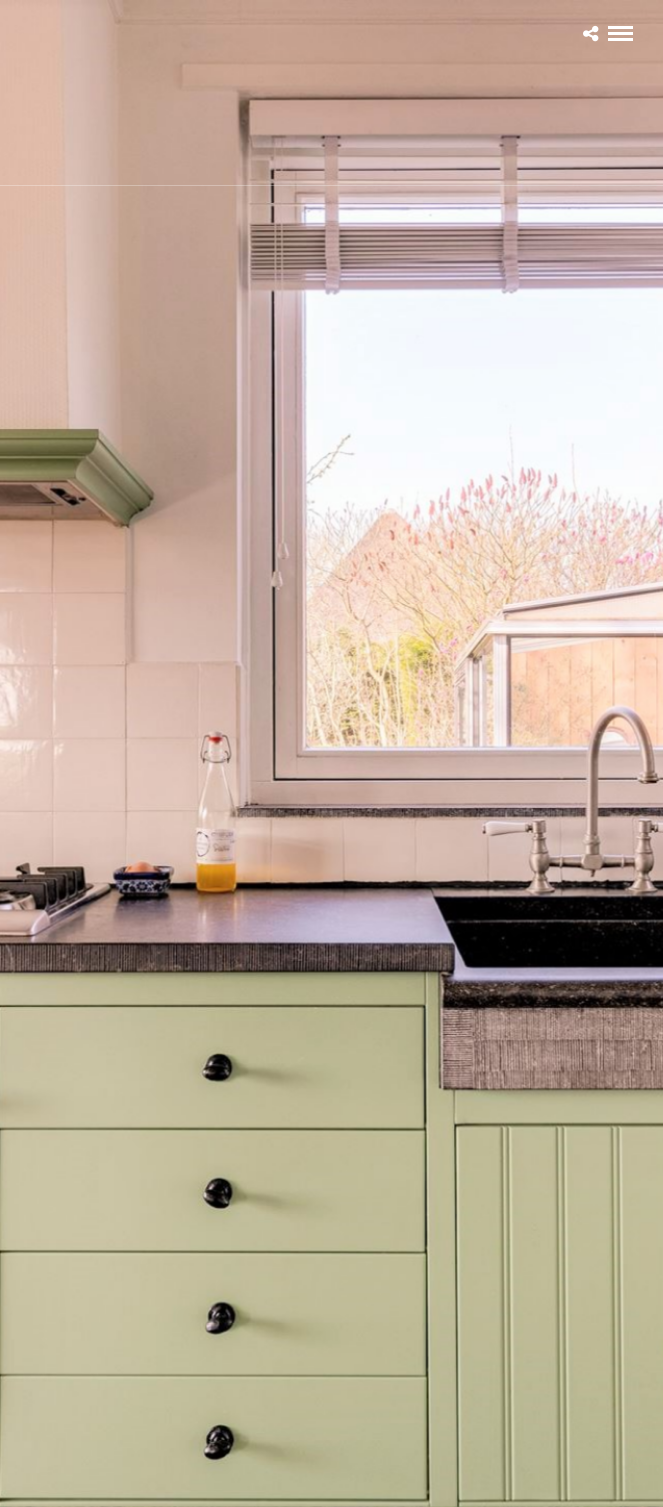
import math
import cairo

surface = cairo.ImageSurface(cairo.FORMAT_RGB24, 663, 1507)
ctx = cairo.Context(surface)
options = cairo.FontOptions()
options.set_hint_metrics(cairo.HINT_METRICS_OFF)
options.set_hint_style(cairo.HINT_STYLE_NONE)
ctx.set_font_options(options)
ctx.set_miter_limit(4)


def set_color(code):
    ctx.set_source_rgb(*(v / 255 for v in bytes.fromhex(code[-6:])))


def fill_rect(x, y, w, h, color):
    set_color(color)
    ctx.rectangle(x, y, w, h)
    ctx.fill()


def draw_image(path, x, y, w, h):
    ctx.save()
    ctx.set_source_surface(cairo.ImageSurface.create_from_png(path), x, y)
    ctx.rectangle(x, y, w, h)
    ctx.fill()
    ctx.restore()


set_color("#ffffff")
ctx.paint()
draw_image("assets/img2.png", 0, 1506, 663, 1)
draw_image("assets/img1.png", 0, 0, 663, 1507)
ctx.set_source_rgba(1, 1, 1, 0.3)
ctx.rectangle(0, 185, 663, 1)
ctx.fill()
draw_image("assets/img3.png", 583, 25, 16, 17)
fill_rect(608, 26, 25, 3, "#ffffff")
fill_rect(608, 32, 25, 3, "#ffffff")
fill_rect(608, 38, 25, 3, "#ffffff")
surface.write_to_png("output.png")
